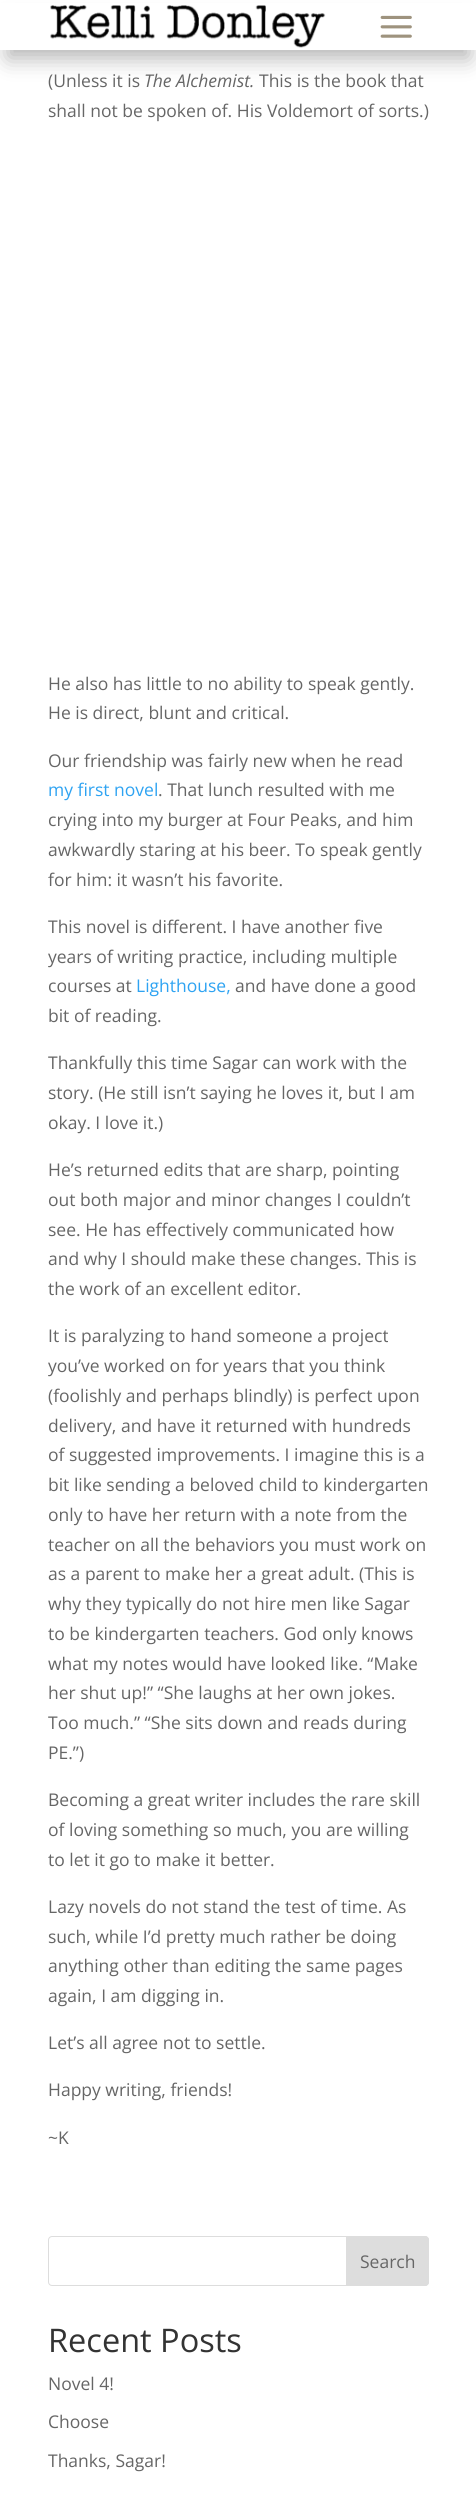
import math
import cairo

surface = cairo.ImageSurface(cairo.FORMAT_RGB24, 476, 2494)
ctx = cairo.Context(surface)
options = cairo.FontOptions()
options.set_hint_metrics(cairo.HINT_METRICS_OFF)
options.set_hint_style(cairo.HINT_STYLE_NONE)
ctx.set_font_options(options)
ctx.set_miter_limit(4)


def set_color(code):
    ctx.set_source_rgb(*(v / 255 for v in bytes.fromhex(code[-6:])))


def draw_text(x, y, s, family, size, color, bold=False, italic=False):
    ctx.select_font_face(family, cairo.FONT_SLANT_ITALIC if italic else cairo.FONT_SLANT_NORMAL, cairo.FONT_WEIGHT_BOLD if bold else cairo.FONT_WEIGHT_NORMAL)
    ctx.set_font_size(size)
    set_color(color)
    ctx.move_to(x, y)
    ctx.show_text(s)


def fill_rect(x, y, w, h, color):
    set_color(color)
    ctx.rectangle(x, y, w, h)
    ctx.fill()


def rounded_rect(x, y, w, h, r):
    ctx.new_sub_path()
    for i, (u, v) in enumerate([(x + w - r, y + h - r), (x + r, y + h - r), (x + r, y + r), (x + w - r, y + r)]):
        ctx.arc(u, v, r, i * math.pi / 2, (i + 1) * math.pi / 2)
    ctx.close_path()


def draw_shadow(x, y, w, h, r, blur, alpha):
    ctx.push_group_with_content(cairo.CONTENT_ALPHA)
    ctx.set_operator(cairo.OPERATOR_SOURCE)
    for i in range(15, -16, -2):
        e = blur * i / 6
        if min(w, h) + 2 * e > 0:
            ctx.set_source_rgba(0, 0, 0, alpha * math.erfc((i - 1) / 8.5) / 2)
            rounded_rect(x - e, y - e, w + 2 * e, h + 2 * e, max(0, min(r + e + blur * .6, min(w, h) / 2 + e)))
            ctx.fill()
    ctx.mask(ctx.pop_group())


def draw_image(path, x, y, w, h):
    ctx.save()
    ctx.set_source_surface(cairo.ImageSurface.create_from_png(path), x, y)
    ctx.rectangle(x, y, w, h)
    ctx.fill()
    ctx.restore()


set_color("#ffffff")
ctx.paint()
set_color("#000000")
draw_shadow(8, 23, 461, 35, 0, 11, 0.3)
fill_rect(0, 3, 476, 47, "#ffffff")
draw_image("assets/img1.png", 50, 5, 276, 43)
draw_image("assets/img2.png", 380, 15, 32, 23)
draw_text(48, 87, "(Unless it is", "Open Sans", 17.5, "#666666")
draw_text(144, 87, "The Alchemist.", "Open Sans", 17.5, "#666666", italic=True)
draw_text(259, 87, "This is the book that", "Open Sans", 17.5, "#666666")
draw_text(48, 117, "shall not be spoken of. His Voldemort of sorts.)", "Open Sans", 17.5, "#666666")
draw_text(48, 690, "He also has little to no ability to speak gently.", "Open Sans", 17.5, "#666666")
draw_text(48, 719, "He is direct, blunt and critical.", "Open Sans", 17.5, "#666666")
draw_text(48, 767, "Our friendship was fairly new when he read", "Open Sans", 17.5, "#666666")
draw_text(48, 796, "my first novel", "Open Sans", 17.5, "#2ea3f2")
draw_text(158, 796, ". That lunch resulted with me", "Open Sans", 17.5, "#666666")
draw_text(48, 826, "crying into my burger at Four Peaks, and him", "Open Sans", 17.5, "#666666")
draw_text(48, 856, "awkwardly staring at his beer. To speak gently", "Open Sans", 17.5, "#666666")
draw_text(48, 886, "for him: it wasn’t his favorite.", "Open Sans", 17.5, "#666666")
draw_text(48, 933, "This novel is different. I have another five", "Open Sans", 17.5, "#666666")
draw_text(48, 963, "years of writing practice, including multiple", "Open Sans", 17.5, "#666666")
draw_text(48, 992, "courses at", "Open Sans", 17.5, "#666666")
draw_text(136, 992, "Lighthouse,", "Open Sans", 17.5, "#2ea3f2")
draw_text(235, 992, "and have done a good", "Open Sans", 17.5, "#666666")
draw_text(48, 1022, "bit of reading.", "Open Sans", 17.5, "#666666")
draw_text(48, 1069, "Thankfully this time Sagar can work with the", "Open Sans", 17.5, "#666666")
draw_text(48, 1099, "story. (He still isn’t saying he loves it, but I am", "Open Sans", 17.5, "#666666")
draw_text(48, 1129, "okay. I love it.)", "Open Sans", 17.5, "#666666")
draw_text(48, 1176, "He’s returned edits that are sharp, pointing", "Open Sans", 17.5, "#666666")
draw_text(48, 1206, "out both major and minor changes I couldn’t", "Open Sans", 17.5, "#666666")
draw_text(48, 1236, "see. He has effectively communicated how", "Open Sans", 17.5, "#666666")
draw_text(48, 1265, "and why I should make these changes. This is", "Open Sans", 17.5, "#666666")
draw_text(48, 1295, "the work of an excellent editor.", "Open Sans", 17.5, "#666666")
draw_text(48, 1342, "It is paralyzing to hand someone a project", "Open Sans", 17.5, "#666666")
draw_text(48, 1372, "you’ve worked on for years that you think", "Open Sans", 17.5, "#666666")
draw_text(48, 1402, "(foolishly and perhaps blindly) is perfect upon", "Open Sans", 17.5, "#666666")
draw_text(48, 1432, "delivery, and have it returned with hundreds", "Open Sans", 17.5, "#666666")
draw_text(48, 1461, "of suggested improvements. I imagine this is a", "Open Sans", 17.5, "#666666")
draw_text(48, 1491, "bit like sending a beloved child to kindergarten", "Open Sans", 17.5, "#666666")
draw_text(48, 1521, "only to have her return with a note from the", "Open Sans", 17.5, "#666666")
draw_text(48, 1551, "teacher on all the behaviors you must work on", "Open Sans", 17.5, "#666666")
draw_text(48, 1580, "as a parent to make her a great adult. (This is", "Open Sans", 17.5, "#666666")
draw_text(48, 1610, "why they typically do not hire men like Sagar", "Open Sans", 17.5, "#666666")
draw_text(48, 1640, "to be kindergarten teachers. God only knows", "Open Sans", 17.5, "#666666")
draw_text(48, 1670, "what my notes would have looked like. “Make", "Open Sans", 17.5, "#666666")
draw_text(48, 1699, "her shut up!” “She laughs at her own jokes.", "Open Sans", 17.5, "#666666")
draw_text(48, 1729, "Too much.” “She sits down and reads during", "Open Sans", 17.5, "#666666")
draw_text(48, 1759, "PE.”)", "Open Sans", 17.5, "#666666")
draw_text(48, 1806, "Becoming a great writer includes the rare skill", "Open Sans", 17.5, "#666666")
draw_text(48, 1836, "of loving something so much, you are willing", "Open Sans", 17.5, "#666666")
draw_text(48, 1866, "to let it go to make it better.", "Open Sans", 17.5, "#666666")
draw_text(48, 1913, "Lazy novels do not stand the test of time. As", "Open Sans", 17.5, "#666666")
draw_text(48, 1943, "such, while I’d pretty much rather be doing", "Open Sans", 17.5, "#666666")
draw_text(48, 1972, "anything other than editing the same pages", "Open Sans", 17.5, "#666666")
draw_text(48, 2002, "again, I am digging in.", "Open Sans", 17.5, "#666666")
draw_text(48, 2049, "Let’s all agree not to settle.", "Open Sans", 17.5, "#666666")
draw_text(48, 2096, "Happy writing, friends!", "Open Sans", 17.5, "#666666")
draw_text(48, 2144, "~K", "Open Sans", 17.5, "#666666")
rounded_rect(48.5, 2236.5, 380, 49, 3.5)
set_color("#dddddd")
ctx.set_line_width(1)
ctx.stroke()
ctx.new_path()
ctx.move_to(346.5, 2236.5)
ctx.line_to(425, 2236.5)
ctx.curve_to(427, 2236.5, 428.5, 2238, 428.5, 2240)
ctx.line_to(428.5, 2282)
ctx.curve_to(428.5, 2284, 427, 2285.5, 425, 2285.5)
ctx.line_to(346.5, 2285.5)
ctx.close_path()
ctx.fill_preserve()
ctx.stroke()
draw_text(360, 2268, "Search", "Open Sans", 17.5, "#666666")
draw_text(48, 2352, "Recent Posts", "Open Sans", 32.5, "#333333")
draw_text(48, 2390, "Novel 4!", "Open Sans", 17.5, "#666666")
draw_text(48, 2428, "Choose", "Open Sans", 17.5, "#666666")
draw_text(48, 2467, "Thanks, Sagar!", "Open Sans", 17.5, "#666666")
surface.write_to_png("output.png")
